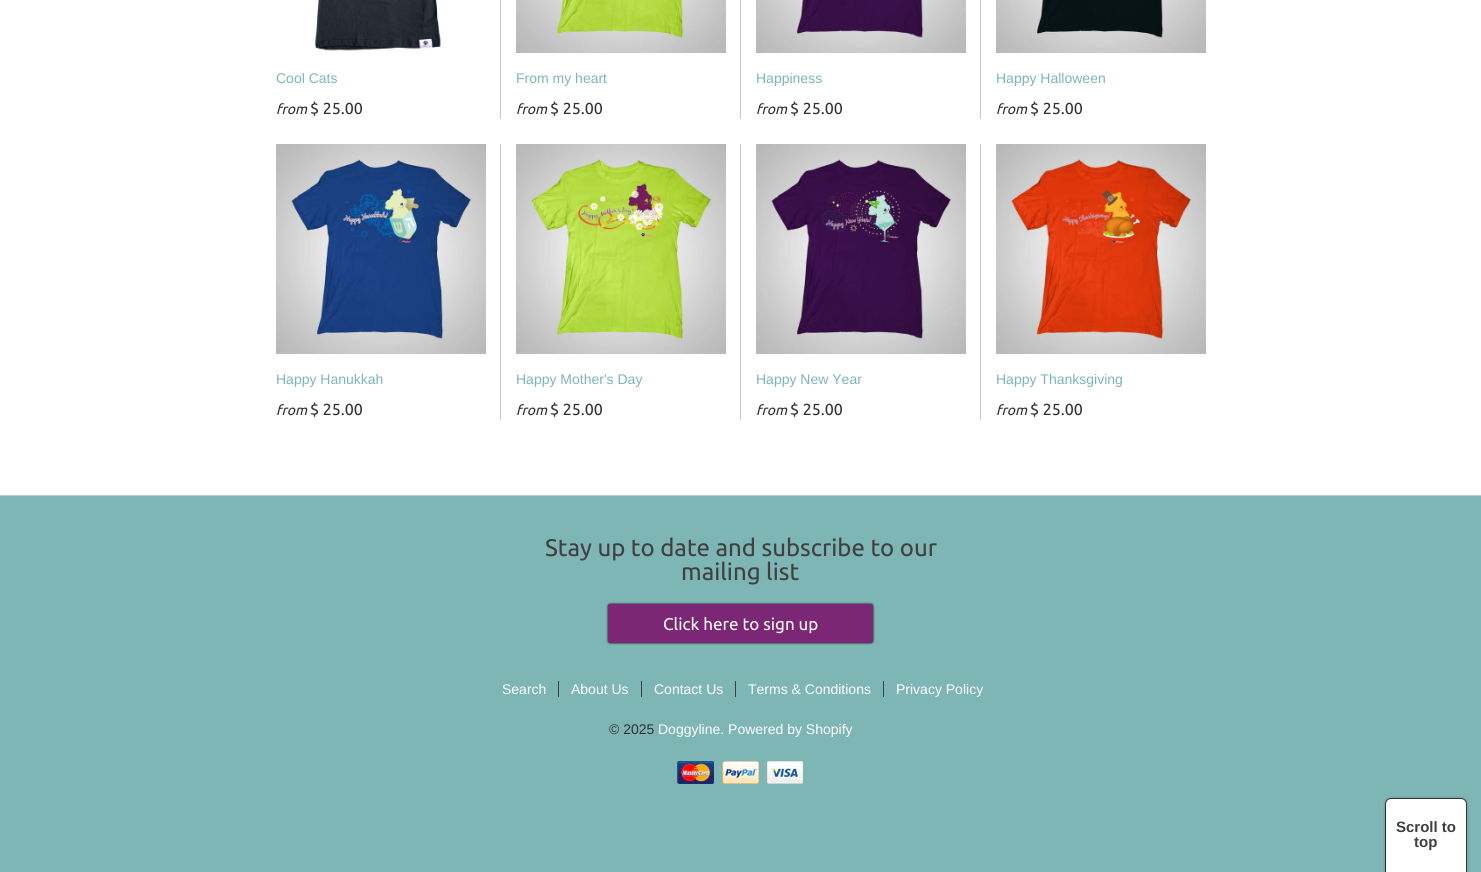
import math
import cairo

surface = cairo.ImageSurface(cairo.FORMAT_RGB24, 1481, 872)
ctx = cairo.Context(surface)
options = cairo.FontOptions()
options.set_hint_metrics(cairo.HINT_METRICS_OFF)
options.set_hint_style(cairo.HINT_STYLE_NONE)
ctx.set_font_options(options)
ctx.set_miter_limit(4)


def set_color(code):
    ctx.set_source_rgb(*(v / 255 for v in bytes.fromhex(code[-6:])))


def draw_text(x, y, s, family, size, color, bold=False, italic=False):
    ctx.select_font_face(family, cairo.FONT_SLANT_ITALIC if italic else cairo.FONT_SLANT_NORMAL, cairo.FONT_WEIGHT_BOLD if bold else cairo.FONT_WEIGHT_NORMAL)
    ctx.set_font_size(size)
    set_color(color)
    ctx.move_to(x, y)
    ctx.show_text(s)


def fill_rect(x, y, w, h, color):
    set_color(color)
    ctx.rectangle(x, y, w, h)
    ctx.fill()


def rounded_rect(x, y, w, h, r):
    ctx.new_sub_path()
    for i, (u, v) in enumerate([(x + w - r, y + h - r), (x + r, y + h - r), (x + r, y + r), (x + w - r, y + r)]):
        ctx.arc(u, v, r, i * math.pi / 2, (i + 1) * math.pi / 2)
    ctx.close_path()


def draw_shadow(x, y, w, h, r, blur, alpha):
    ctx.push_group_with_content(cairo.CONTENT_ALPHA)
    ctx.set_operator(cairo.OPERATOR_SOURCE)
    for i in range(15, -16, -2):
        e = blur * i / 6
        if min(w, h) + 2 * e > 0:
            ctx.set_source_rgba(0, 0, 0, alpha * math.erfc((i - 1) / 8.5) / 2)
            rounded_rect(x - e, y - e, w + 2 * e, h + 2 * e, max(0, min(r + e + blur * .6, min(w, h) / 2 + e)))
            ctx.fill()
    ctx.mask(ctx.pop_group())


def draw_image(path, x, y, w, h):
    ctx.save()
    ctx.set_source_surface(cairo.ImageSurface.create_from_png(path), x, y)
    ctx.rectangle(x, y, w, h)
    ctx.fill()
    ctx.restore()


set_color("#7eb5b5")
ctx.paint()
fill_rect(0, 0, 1481, 495, "#ffffff")
draw_text(276, 83, "Cool Cats", "Liberation Sans", 14, "#7eb5b5")
draw_image("assets/img1.png", 314, 0, 127, 51)
fill_rect(500, 0, 1, 119, "#c4c9c5")
draw_text(276, 114, "from", "Ubuntu", 14, "#303030", italic=True)
draw_text(310, 114, "$ 25.00", "Ubuntu", 16, "#303030")
draw_image("assets/img2.png", 516, 0, 210, 53)
fill_rect(740, 0, 1, 119, "#c4c9c5")
draw_text(516, 83, "From my heart", "Liberation Sans", 14, "#7eb5b5")
draw_text(516, 114, "from", "Ubuntu", 14, "#303030", italic=True)
draw_text(550, 114, "$ 25.00", "Ubuntu", 16, "#303030")
draw_image("assets/img3.png", 756, 0, 210, 53)
fill_rect(980, 0, 1, 119, "#c4c9c5")
draw_text(756, 83, "Happiness", "Liberation Sans", 14, "#7eb5b5")
draw_text(756, 114, "from", "Ubuntu", 14, "#303030", italic=True)
draw_text(790, 114, "$ 25.00", "Ubuntu", 16, "#303030")
draw_image("assets/img4.png", 996, 0, 210, 53)
draw_text(996, 83, "Happy Halloween", "Liberation Sans", 14, "#7eb5b5")
draw_text(996, 114, "from", "Ubuntu", 14, "#303030", italic=True)
draw_text(1030, 114, "$ 25.00", "Ubuntu", 16, "#303030")
draw_image("assets/img5.png", 276, 144, 210, 210)
fill_rect(500, 144, 1, 276, "#c4c9c5")
draw_text(276, 384, "Happy Hanukkah", "Liberation Sans", 14, "#7eb5b5")
draw_text(276, 415, "from", "Ubuntu", 14, "#303030", italic=True)
draw_text(310, 415, "$ 25.00", "Ubuntu", 16, "#303030")
draw_image("assets/img6.png", 516, 144, 210, 210)
fill_rect(740, 144, 1, 276, "#c4c9c5")
draw_text(516, 384, "Happy Mother's Day", "Liberation Sans", 14, "#7eb5b5")
draw_text(516, 415, "from", "Ubuntu", 14, "#303030", italic=True)
draw_text(550, 415, "$ 25.00", "Ubuntu", 16, "#303030")
draw_image("assets/img7.png", 756, 144, 210, 210)
fill_rect(980, 144, 1, 276, "#c4c9c5")
draw_text(756, 384, "Happy New Year", "Liberation Sans", 14, "#7eb5b5")
draw_text(756, 415, "from", "Ubuntu", 14, "#303030", italic=True)
draw_text(790, 415, "$ 25.00", "Ubuntu", 16, "#303030")
draw_image("assets/img8.png", 996, 144, 210, 210)
draw_text(996, 384, "Happy Thanksgiving", "Liberation Sans", 14, "#7eb5b5")
draw_text(996, 415, "from", "Ubuntu", 14, "#303030", italic=True)
draw_text(1030, 415, "$ 25.00", "Ubuntu", 16, "#303030")
fill_rect(0, 495, 1481, 1, "#c4c9c5")
draw_text(545, 556, "Stay up to date and subscribe to our", "Ubuntu", 24, "#404040")
draw_text(681, 580, "mailing list", "Ubuntu", 24, "#404040")
set_color("#000000")
draw_shadow(608, 604, 265, 39, 2, 1, 1)
set_color("#7b2775")
rounded_rect(608, 604, 265, 39, 2)
ctx.fill()
draw_text(663, 630, "Click here to sign up", "Ubuntu", 17, "#ffffff")
draw_text(502, 694, "Search", "Liberation Sans", 14, "#ffffff")
draw_text(571, 694, "About Us", "Liberation Sans", 14, "#ffffff")
fill_rect(558, 681, 1, 16, "#404040")
draw_text(654, 694, "Contact Us", "Liberation Sans", 14, "#ffffff")
fill_rect(641, 681, 1, 16, "#404040")
draw_text(748, 694, "Terms & Conditions", "Liberation Sans", 14, "#ffffff")
fill_rect(735, 681, 1, 16, "#404040")
draw_text(896, 694, "Privacy Policy", "Liberation Sans", 14, "#ffffff")
fill_rect(883, 681, 1, 16, "#404040")
draw_text(609, 734, "© 2025", "Liberation Sans", 14, "#303030")
draw_text(658, 734, "Doggyline. Powered by Shopify", "Liberation Sans", 14, "#ffffff")
draw_image("assets/img9.png", 677, 761, 37, 23)
draw_image("assets/img10.png", 722, 761, 37, 23)
draw_image("assets/img11.png", 767, 761, 36, 23)
set_color("#555555")
draw_shadow(1386, 799, 80, 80, 5, 1.5, 1)
set_color("#ffffff")
ctx.new_path()
ctx.move_to(1391, 798.5)
ctx.line_to(1461, 798.5)
ctx.curve_to(1464, 798.5, 1466.5, 801, 1466.5, 804)
ctx.line_to(1466.5, 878.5)
ctx.line_to(1385.5, 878.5)
ctx.line_to(1385.5, 804)
ctx.curve_to(1385.5, 801, 1388, 798.5, 1391, 798.5)
ctx.close_path()
ctx.fill_preserve()
set_color("#333333")
ctx.set_line_width(1)
ctx.stroke()
draw_text(1396, 832, "Scroll to", "Liberation Sans", 15, "#404040", bold=True)
draw_text(1414, 847, "top", "Liberation Sans", 15, "#404040", bold=True)
surface.write_to_png("output.png")
